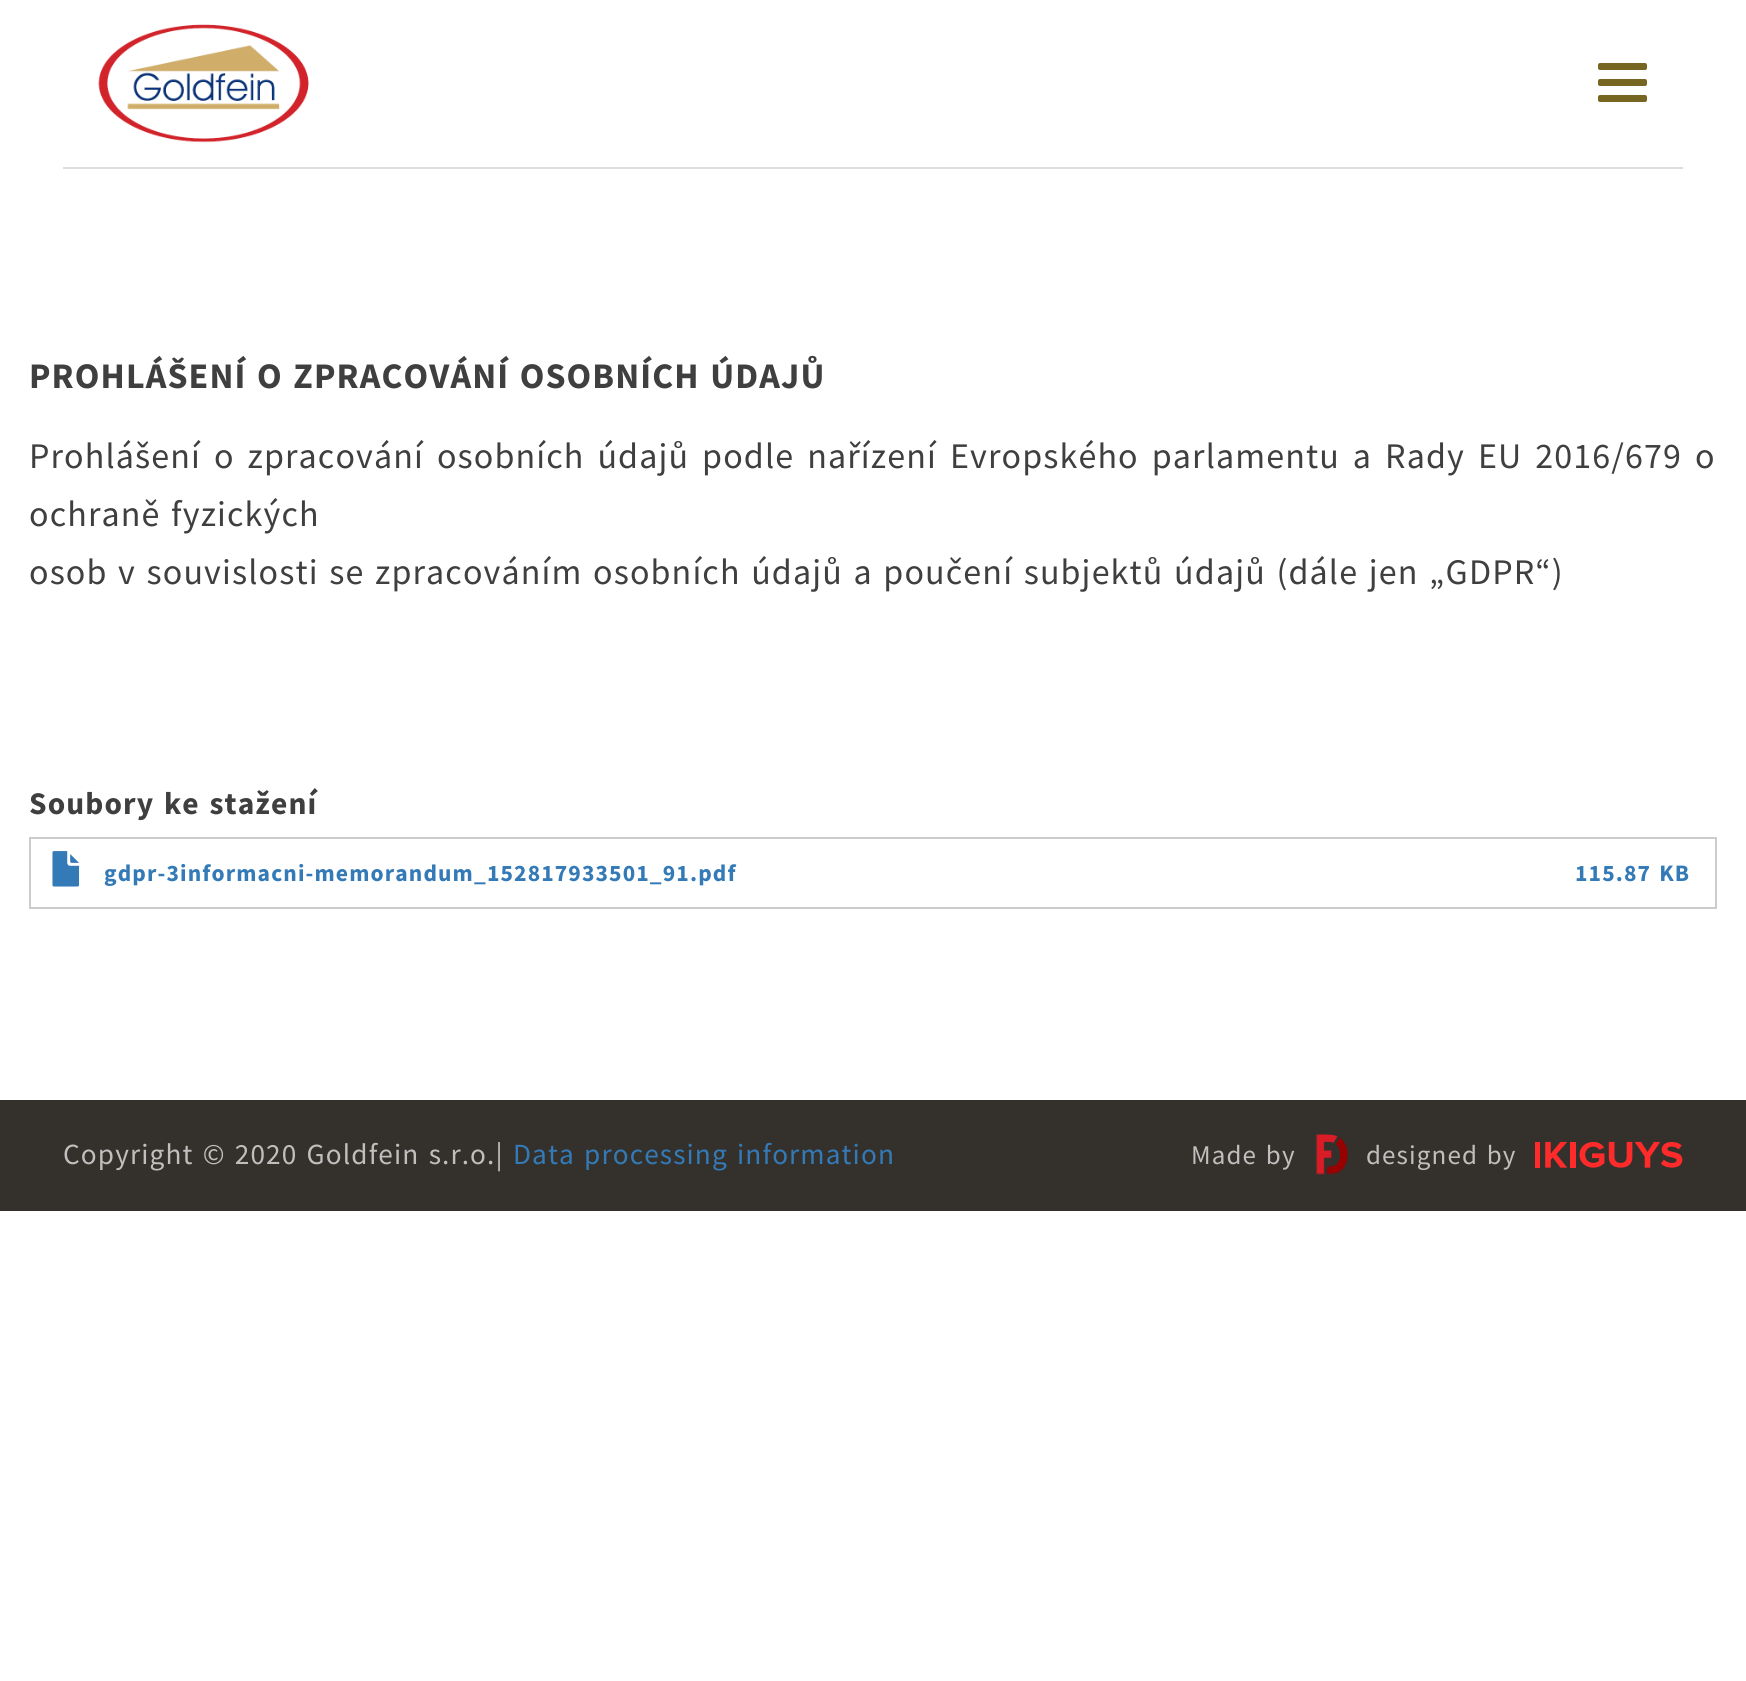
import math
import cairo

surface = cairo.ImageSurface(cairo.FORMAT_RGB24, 1746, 1681)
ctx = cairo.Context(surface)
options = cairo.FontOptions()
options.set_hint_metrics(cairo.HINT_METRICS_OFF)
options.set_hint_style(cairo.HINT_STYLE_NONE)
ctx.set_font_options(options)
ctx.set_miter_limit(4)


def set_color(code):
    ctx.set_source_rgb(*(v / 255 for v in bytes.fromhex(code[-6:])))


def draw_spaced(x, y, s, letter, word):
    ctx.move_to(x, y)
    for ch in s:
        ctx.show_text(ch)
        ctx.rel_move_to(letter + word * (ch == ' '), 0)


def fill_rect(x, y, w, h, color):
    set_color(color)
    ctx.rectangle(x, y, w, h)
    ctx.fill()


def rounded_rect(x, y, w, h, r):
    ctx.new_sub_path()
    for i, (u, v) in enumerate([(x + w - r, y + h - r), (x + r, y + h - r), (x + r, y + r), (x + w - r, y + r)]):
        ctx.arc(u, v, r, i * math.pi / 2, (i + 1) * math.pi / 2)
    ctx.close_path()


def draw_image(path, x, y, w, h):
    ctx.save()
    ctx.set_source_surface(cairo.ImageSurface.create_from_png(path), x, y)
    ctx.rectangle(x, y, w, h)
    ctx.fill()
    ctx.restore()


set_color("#ffffff")
ctx.paint()
draw_image("assets/img1.png", 98, 24, 211, 119)
set_color("#776622")
rounded_rect(1598, 63, 49, 7, 2)
ctx.fill()
rounded_rect(1598, 79, 49, 7, 2)
ctx.fill()
rounded_rect(1598, 95, 49, 7, 2)
ctx.fill()
fill_rect(63, 167, 1620, 2, "#dddddd")
ctx.select_font_face("Source Sans Pro", cairo.FONT_SLANT_NORMAL, cairo.FONT_WEIGHT_BOLD)
ctx.set_font_size(36)
set_color("#3f3f3f")
draw_spaced(29, 388, "PROHLÁŠENÍ O ZPRACOVÁNÍ OSOBNÍCH ÚDAJŮ", 1.12, 2.25)
ctx.select_font_face("Source Sans Pro")
draw_spaced(29, 468, "Prohlášení o zpracování osobních údajů podle nařízení Evropského parlamentu a Rady EU 2016/679 o", 1.12, 4.6)
draw_spaced(29, 526, "ochraně fyzických", 1.12, 2.25)
draw_spaced(29, 584, "osob v souvislosti se zpracováním osobních údajů a poučení subjektů údajů (dále jen „GDPR“)", 1.12, 2.25)
ctx.select_font_face("Source Sans Pro", cairo.FONT_SLANT_NORMAL, cairo.FONT_WEIGHT_BOLD)
ctx.set_font_size(31.5)
draw_spaced(29, 814, "Soubory ke stažení", 1.12, 2.25)
fill_rect(29, 837, 1688, 2, "#cccccc")
fill_rect(29, 907, 1524, 2, "#cccccc")
fill_rect(29, 837, 2, 72, "#cccccc")
draw_image("assets/img2.png", 52, 851, 28, 36)
ctx.set_font_size(23.6)
set_color("#337ab7")
draw_spaced(104, 881, "gdpr-3informacni-memorandum_152817933501_91.pdf", 1.12, 0)
fill_rect(1715, 837, 2, 72, "#cccccc")
fill_rect(1553, 907, 164, 2, "#cccccc")
set_color("#337ab7")
draw_spaced(1575, 881, "115.87 KB", 1.12, 2.25)
fill_rect(0, 1100, 1746, 111, "#34312d")
ctx.select_font_face("Source Sans Pro")
ctx.set_font_size(29.25)
set_color("#c0bfbe")
draw_spaced(63, 1164, "Copyright © 2020 Goldfein s.r.o.|", 1.12, 2.25)
set_color("#337ab7")
draw_spaced(513, 1164, "Data processing information", 1.12, 2.25)
ctx.set_font_size(27)
set_color("#c0bfbe")
draw_spaced(1191, 1164, "Made by", 1.12, 2.25)
draw_image("assets/img3.png", 1316, 1134, 32, 41)
draw_spaced(1366, 1164, "designed by", 1.12, 2.25)
draw_image("assets/img4.png", 1535, 1141, 148, 27)
surface.write_to_png("output.png")
